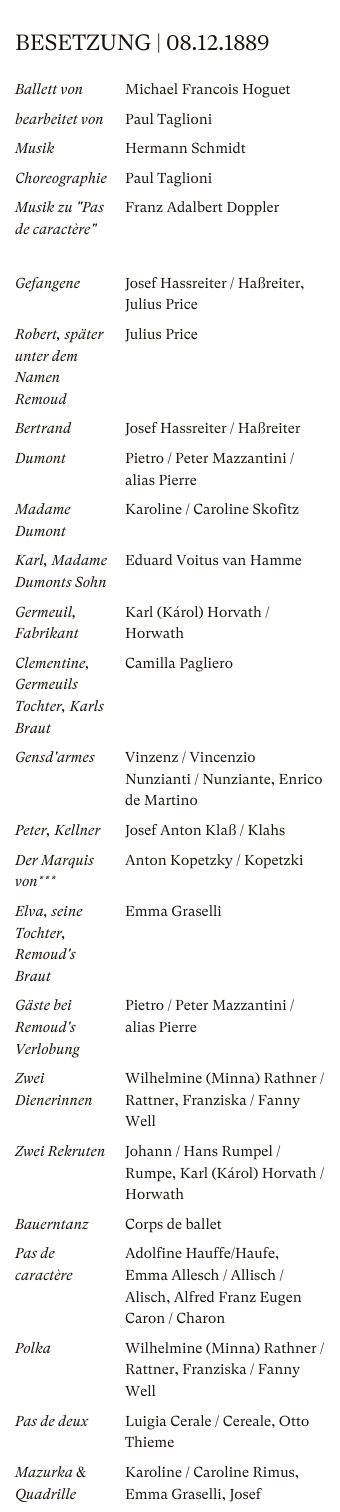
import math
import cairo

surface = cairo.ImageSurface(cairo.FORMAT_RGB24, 340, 1512)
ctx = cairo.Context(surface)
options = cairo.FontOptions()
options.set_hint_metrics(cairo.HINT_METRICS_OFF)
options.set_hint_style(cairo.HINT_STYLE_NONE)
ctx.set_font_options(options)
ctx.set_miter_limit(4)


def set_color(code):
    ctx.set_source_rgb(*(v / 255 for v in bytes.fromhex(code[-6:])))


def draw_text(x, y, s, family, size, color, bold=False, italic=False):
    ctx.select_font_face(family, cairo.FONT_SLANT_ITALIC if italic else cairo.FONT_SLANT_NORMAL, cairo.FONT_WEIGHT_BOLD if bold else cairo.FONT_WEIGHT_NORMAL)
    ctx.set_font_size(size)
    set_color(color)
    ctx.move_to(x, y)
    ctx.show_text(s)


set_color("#ffffff")
ctx.paint()
draw_text(15, 50, "BESETZUNG | 08.12.1889", "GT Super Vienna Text", 22, "#19140e")
draw_text(15, 94, "Ballett von", "GT Super Vienna Text", 14.4, "#19140e", italic=True)
draw_text(125, 94, "Michael Francois Hoguet", "GT Super Vienna Text", 14.4, "#19140e")
draw_text(15, 124, "bearbeitet von", "GT Super Vienna Text", 14.4, "#19140e", italic=True)
draw_text(125, 124, "Paul Taglioni", "GT Super Vienna Text", 14.4, "#19140e")
draw_text(15, 153, "Musik", "GT Super Vienna Text", 14.4, "#19140e", italic=True)
draw_text(125, 153, "Hermann Schmidt", "GT Super Vienna Text", 14.4, "#19140e")
draw_text(15, 183, "Choreographie", "GT Super Vienna Text", 14.4, "#19140e", italic=True)
draw_text(125, 183, "Paul Taglioni", "GT Super Vienna Text", 14.4, "#19140e")
draw_text(15, 212, "Musik zu \"Pas", "GT Super Vienna Text", 14.4, "#19140e", italic=True)
draw_text(15, 234, "de caractère\"", "GT Super Vienna Text", 14.4, "#19140e", italic=True)
draw_text(125, 212, "Franz Adalbert Doppler", "GT Super Vienna Text", 14.4, "#19140e")
draw_text(15, 288, "Gefangene", "GT Super Vienna Text", 14.4, "#19140e", italic=True)
draw_text(125, 288, "Josef Hassreiter / Haßreiter,", "GT Super Vienna Text", 14.4, "#19140e")
draw_text(125, 309, "Julius Price", "GT Super Vienna Text", 14.4, "#19140e")
draw_text(15, 339, "Robert, später", "GT Super Vienna Text", 14.4, "#19140e", italic=True)
draw_text(15, 361, "unter dem", "GT Super Vienna Text", 14.4, "#19140e", italic=True)
draw_text(15, 382, "Namen", "GT Super Vienna Text", 14.4, "#19140e", italic=True)
draw_text(15, 404, "Remoud", "GT Super Vienna Text", 14.4, "#19140e", italic=True)
draw_text(125, 339, "Julius Price", "GT Super Vienna Text", 14.4, "#19140e")
draw_text(15, 433, "Bertrand", "GT Super Vienna Text", 14.4, "#19140e", italic=True)
draw_text(125, 433, "Josef Hassreiter / Haßreiter", "GT Super Vienna Text", 14.4, "#19140e")
draw_text(15, 463, "Dumont", "GT Super Vienna Text", 14.4, "#19140e", italic=True)
draw_text(125, 463, "Pietro / Peter Mazzantini /", "GT Super Vienna Text", 14.4, "#19140e")
draw_text(125, 485, "alias Pierre", "GT Super Vienna Text", 14.4, "#19140e")
draw_text(15, 514, "Madame", "GT Super Vienna Text", 14.4, "#19140e", italic=True)
draw_text(15, 536, "Dumont", "GT Super Vienna Text", 14.4, "#19140e", italic=True)
draw_text(125, 514, "Karoline / Caroline Skofitz", "GT Super Vienna Text", 14.4, "#19140e")
draw_text(15, 565, "Karl, Madame", "GT Super Vienna Text", 14.4, "#19140e", italic=True)
draw_text(15, 587, "Dumonts Sohn", "GT Super Vienna Text", 14.4, "#19140e", italic=True)
draw_text(125, 565, "Eduard Voitus van Hamme", "GT Super Vienna Text", 14.4, "#19140e")
draw_text(15, 617, "Germeuil,", "GT Super Vienna Text", 14.4, "#19140e", italic=True)
draw_text(15, 638, "Fabrikant", "GT Super Vienna Text", 14.4, "#19140e", italic=True)
draw_text(125, 617, "Karl (Károl) Horvath /", "GT Super Vienna Text", 14.4, "#19140e")
draw_text(125, 638, "Horwath", "GT Super Vienna Text", 14.4, "#19140e")
draw_text(15, 668, "Clementine,", "GT Super Vienna Text", 14.4, "#19140e", italic=True)
draw_text(15, 689, "Germeuils", "GT Super Vienna Text", 14.4, "#19140e", italic=True)
draw_text(15, 711, "Tochter, Karls", "GT Super Vienna Text", 14.4, "#19140e", italic=True)
draw_text(15, 733, "Braut", "GT Super Vienna Text", 14.4, "#19140e", italic=True)
draw_text(125, 668, "Camilla Pagliero", "GT Super Vienna Text", 14.4, "#19140e")
draw_text(15, 762, "Gensd'armes", "GT Super Vienna Text", 14.4, "#19140e", italic=True)
draw_text(125, 762, "Vinzenz / Vincenzio", "GT Super Vienna Text", 14.4, "#19140e")
draw_text(125, 784, "Nunzianti / Nunziante, Enrico", "GT Super Vienna Text", 14.4, "#19140e")
draw_text(125, 805, "de Martino", "GT Super Vienna Text", 14.4, "#19140e")
draw_text(15, 835, "Peter, Kellner", "GT Super Vienna Text", 14.4, "#19140e", italic=True)
draw_text(125, 835, "Josef Anton Klaß / Klahs", "GT Super Vienna Text", 14.4, "#19140e")
draw_text(15, 865, "Der Marquis", "GT Super Vienna Text", 14.4, "#19140e", italic=True)
draw_text(15, 886, "von***", "GT Super Vienna Text", 14.4, "#19140e", italic=True)
draw_text(125, 865, "Anton Kopetzky / Kopetzki", "GT Super Vienna Text", 14.4, "#19140e")
draw_text(15, 916, "Elva, seine", "GT Super Vienna Text", 14.4, "#19140e", italic=True)
draw_text(15, 938, "Tochter,", "GT Super Vienna Text", 14.4, "#19140e", italic=True)
draw_text(15, 959, "Remoud's", "GT Super Vienna Text", 14.4, "#19140e", italic=True)
draw_text(15, 981, "Braut", "GT Super Vienna Text", 14.4, "#19140e", italic=True)
draw_text(125, 916, "Emma Graselli", "GT Super Vienna Text", 14.4, "#19140e")
draw_text(15, 1010, "Gäste bei", "GT Super Vienna Text", 14.4, "#19140e", italic=True)
draw_text(15, 1032, "Remoud's", "GT Super Vienna Text", 14.4, "#19140e", italic=True)
draw_text(15, 1054, "Verlobung", "GT Super Vienna Text", 14.4, "#19140e", italic=True)
draw_text(125, 1010, "Pietro / Peter Mazzantini /", "GT Super Vienna Text", 14.4, "#19140e")
draw_text(125, 1032, "alias Pierre", "GT Super Vienna Text", 14.4, "#19140e")
draw_text(15, 1083, "Zwei", "GT Super Vienna Text", 14.4, "#19140e", italic=True)
draw_text(15, 1105, "Dienerinnen", "GT Super Vienna Text", 14.4, "#19140e", italic=True)
draw_text(125, 1083, "Wilhelmine (Minna) Rathner /", "GT Super Vienna Text", 14.4, "#19140e")
draw_text(125, 1105, "Rattner, Franziska / Fanny", "GT Super Vienna Text", 14.4, "#19140e")
draw_text(125, 1126, "Well", "GT Super Vienna Text", 14.4, "#19140e")
draw_text(15, 1156, "Zwei Rekruten", "GT Super Vienna Text", 14.4, "#19140e", italic=True)
draw_text(125, 1156, "Johann / Hans Rumpel /", "GT Super Vienna Text", 14.4, "#19140e")
draw_text(125, 1178, "Rumpe, Karl (Károl) Horvath /", "GT Super Vienna Text", 14.4, "#19140e")
draw_text(125, 1199, "Horwath", "GT Super Vienna Text", 14.4, "#19140e")
draw_text(15, 1229, "Bauerntanz", "GT Super Vienna Text", 14.4, "#19140e", italic=True)
draw_text(125, 1229, "Corps de ballet", "GT Super Vienna Text", 14.4, "#19140e")
draw_text(15, 1258, "Pas de", "GT Super Vienna Text", 14.4, "#19140e", italic=True)
draw_text(15, 1280, "caractère", "GT Super Vienna Text", 14.4, "#19140e", italic=True)
draw_text(125, 1258, "Adolfine Hauffe/Haufe,", "GT Super Vienna Text", 14.4, "#19140e")
draw_text(125, 1280, "Emma Allesch / Allisch /", "GT Super Vienna Text", 14.4, "#19140e")
draw_text(125, 1302, "Alisch, Alfred Franz Eugen", "GT Super Vienna Text", 14.4, "#19140e")
draw_text(125, 1323, "Caron / Charon", "GT Super Vienna Text", 14.4, "#19140e")
draw_text(15, 1353, "Polka", "GT Super Vienna Text", 14.4, "#19140e", italic=True)
draw_text(125, 1353, "Wilhelmine (Minna) Rathner /", "GT Super Vienna Text", 14.4, "#19140e")
draw_text(125, 1374, "Rattner, Franziska / Fanny", "GT Super Vienna Text", 14.4, "#19140e")
draw_text(125, 1396, "Well", "GT Super Vienna Text", 14.4, "#19140e")
draw_text(15, 1426, "Pas de deux", "GT Super Vienna Text", 14.4, "#19140e", italic=True)
draw_text(125, 1426, "Luigia Cerale / Cereale, Otto", "GT Super Vienna Text", 14.4, "#19140e")
draw_text(125, 1447, "Thieme", "GT Super Vienna Text", 14.4, "#19140e")
draw_text(15, 1477, "Mazurka &", "GT Super Vienna Text", 14.4, "#19140e", italic=True)
draw_text(15, 1499, "Quadrille", "GT Super Vienna Text", 14.4, "#19140e", italic=True)
draw_text(125, 1477, "Karoline / Caroline Rimus,", "GT Super Vienna Text", 14.4, "#19140e")
draw_text(125, 1499, "Emma Graselli, Josef", "GT Super Vienna Text", 14.4, "#19140e")
surface.write_to_png("output.png")
